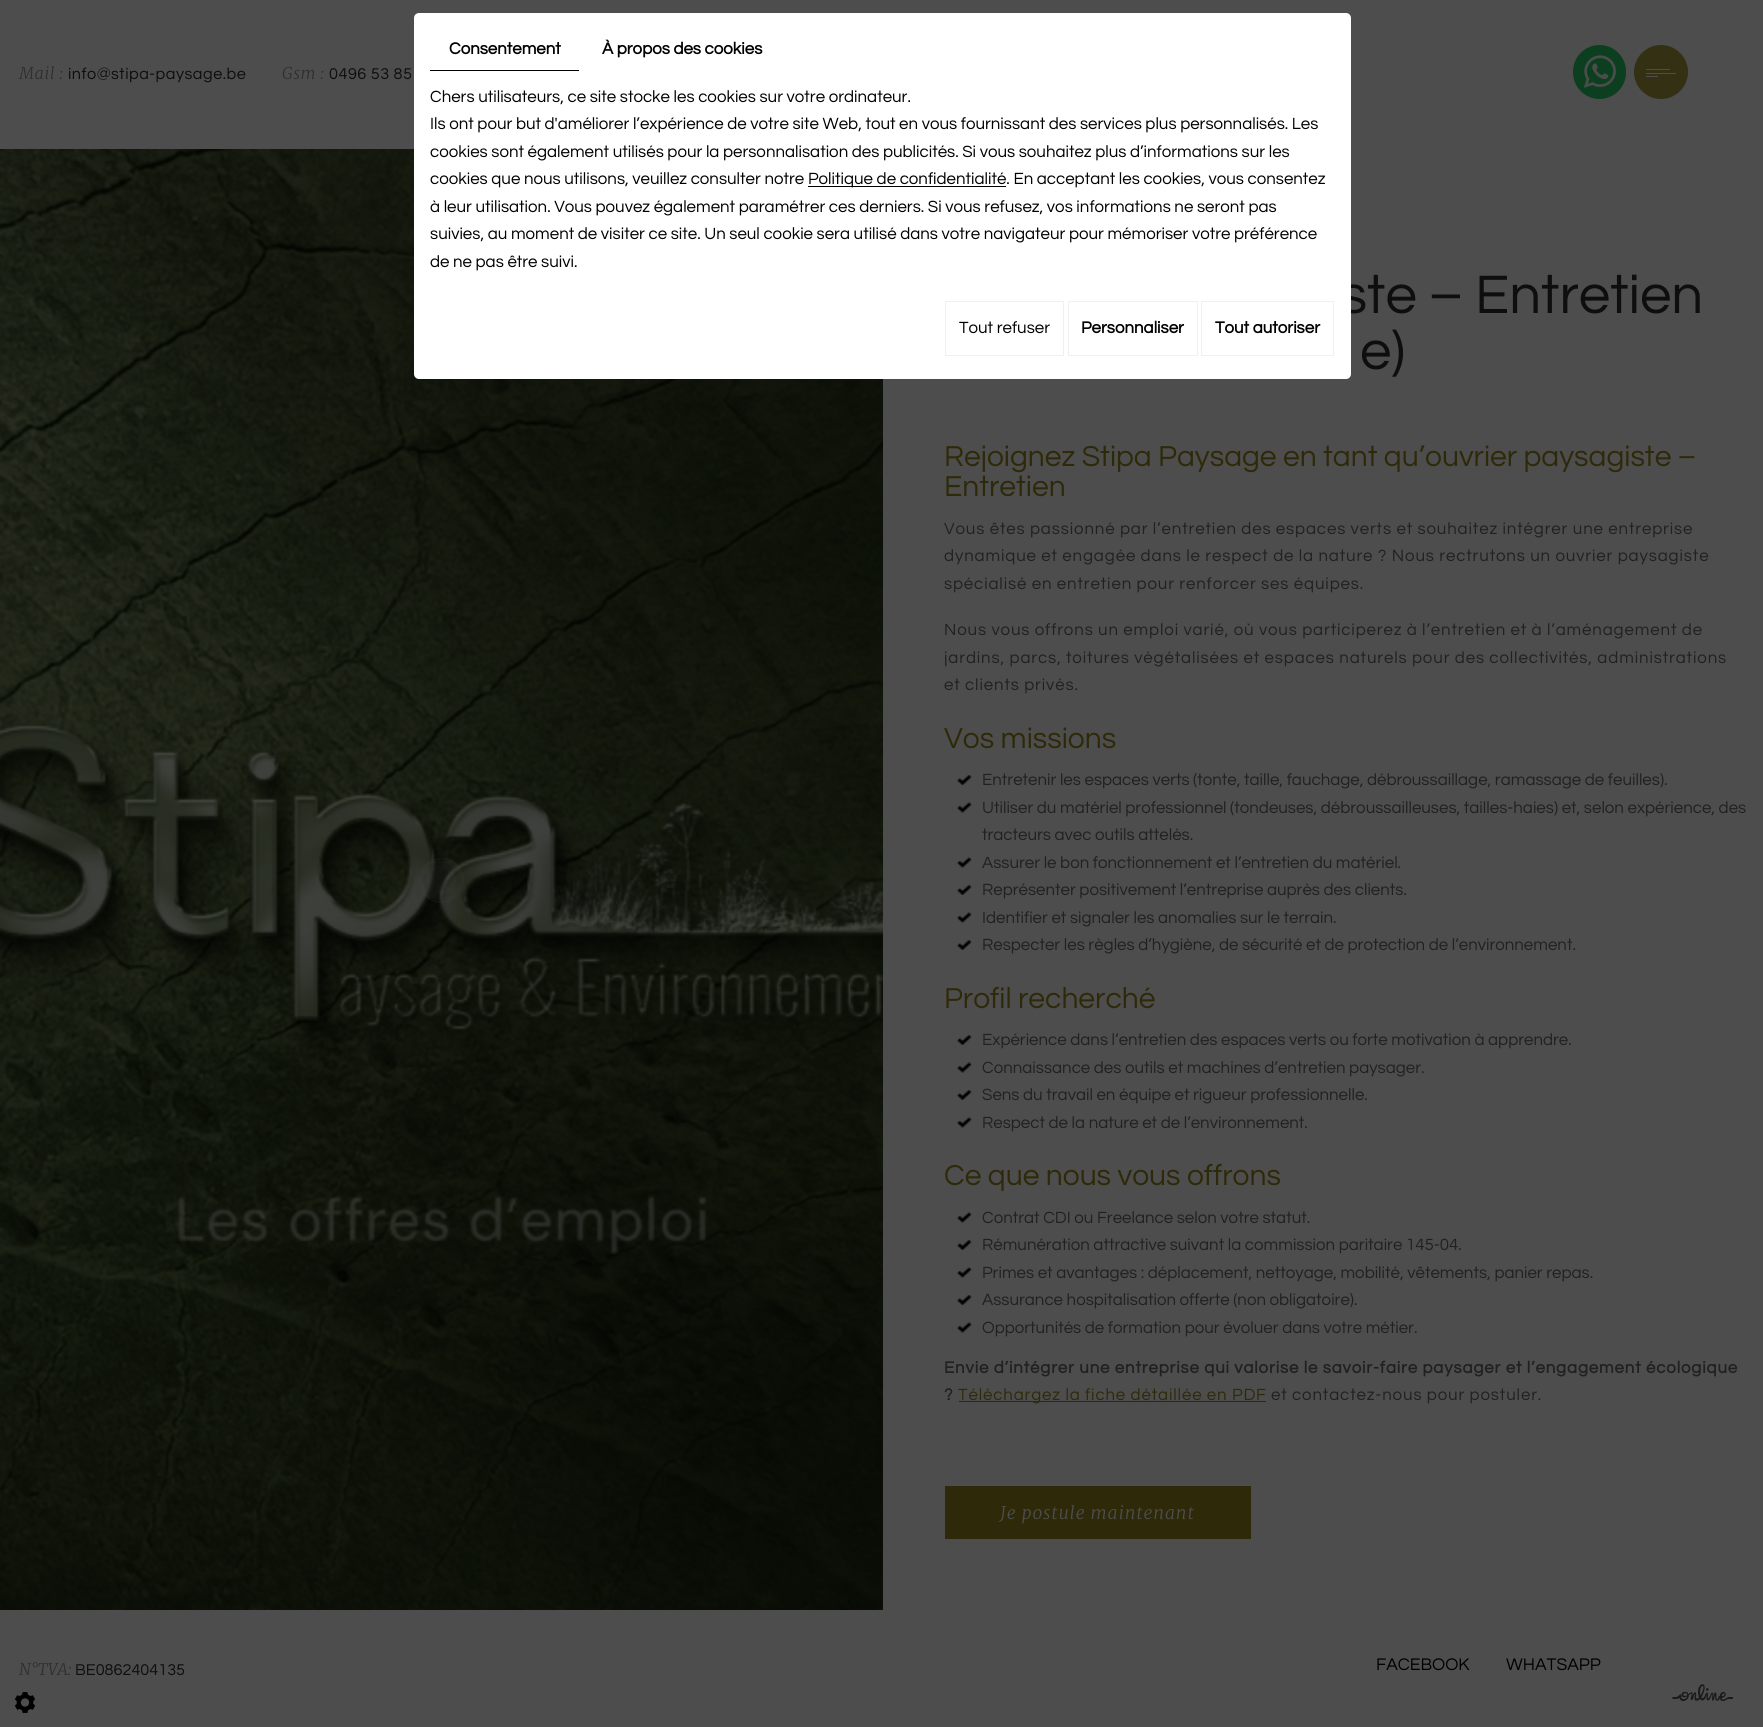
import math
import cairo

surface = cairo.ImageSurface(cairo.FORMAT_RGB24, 1763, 1727)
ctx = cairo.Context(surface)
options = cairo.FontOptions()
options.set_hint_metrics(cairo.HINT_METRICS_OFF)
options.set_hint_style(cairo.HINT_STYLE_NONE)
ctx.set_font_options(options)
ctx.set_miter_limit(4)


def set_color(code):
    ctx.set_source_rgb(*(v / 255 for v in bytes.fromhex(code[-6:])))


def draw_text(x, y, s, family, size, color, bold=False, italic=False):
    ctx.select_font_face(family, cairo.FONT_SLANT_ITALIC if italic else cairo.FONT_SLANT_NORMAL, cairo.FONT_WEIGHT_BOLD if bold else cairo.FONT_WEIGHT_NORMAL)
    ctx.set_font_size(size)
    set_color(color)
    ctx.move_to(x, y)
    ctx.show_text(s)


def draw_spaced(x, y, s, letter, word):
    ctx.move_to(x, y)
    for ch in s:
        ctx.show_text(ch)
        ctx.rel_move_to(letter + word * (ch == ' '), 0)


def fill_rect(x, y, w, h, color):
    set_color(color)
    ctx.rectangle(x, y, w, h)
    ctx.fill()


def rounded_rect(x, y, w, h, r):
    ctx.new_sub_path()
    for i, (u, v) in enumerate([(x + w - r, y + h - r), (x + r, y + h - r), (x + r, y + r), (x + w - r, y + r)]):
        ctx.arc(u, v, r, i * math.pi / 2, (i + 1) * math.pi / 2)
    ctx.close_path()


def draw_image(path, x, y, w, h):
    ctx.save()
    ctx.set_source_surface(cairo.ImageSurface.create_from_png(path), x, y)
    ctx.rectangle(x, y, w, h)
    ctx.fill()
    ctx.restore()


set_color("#4d4d4d")
ctx.paint()
draw_image("assets/img2.png", 0, 149, 883, 1461)
draw_text(1340, 313, "ste – Entretien", "Questrial", 56.25, "#0e0e0f")
set_color("#ffffff")
rounded_rect(414, 13, 937, 366, 5)
ctx.fill()
fill_rect(430, 70, 149, 1, "#000000")
draw_text(449, 54, "Consentement", "Questrial", 16.88, "#000000", bold=True)
draw_text(602, 54, "À propos des cookies", "Questrial", 16.88, "#000000", bold=True)
draw_text(430, 102, "Chers utilisateurs, ce site stocke les cookies sur votre ordinateur.", "Questrial", 16.88, "#000000")
draw_text(430, 129, "Ils ont pour but d'améliorer l’expérience de votre site Web, tout en vous fournissant des services plus personnalisés. Les", "Questrial", 16.88, "#000000")
draw_text(430, 157, "cookies sont également utilisés pour la personnalisation des publicités. Si vous souhaitez plus d’informations sur les", "Questrial", 16.88, "#000000")
draw_text(430, 184, "cookies que nous utilisons, veuillez consulter notre", "Questrial", 16.88, "#000000")
fill_rect(808, 186, 198, 1, "#000000")
draw_text(808, 184, "Politique de confidentialité. En acceptant les cookies, vous consentez", "Questrial", 16.88, "#000000")
draw_text(430, 212, "à leur utilisation. Vous pouvez également paramétrer ces derniers. Si vous refusez, vos informations ne seront pas", "Questrial", 16.88, "#000000")
draw_text(430, 239, "suivies, au moment de visiter ce site. Un seul cookie sera utilisé dans votre navigateur pour mémoriser votre préférence", "Questrial", 16.88, "#000000")
draw_text(430, 267, "de ne pas être suivi.", "Questrial", 16.88, "#000000")
ctx.rectangle(945.5, 301.5, 118, 54)
set_color("#f0f0f0")
ctx.set_line_width(1)
ctx.stroke()
draw_text(959, 333, "Tout refuser", "Questrial", 16.88, "#000000")
ctx.rectangle(1068.5, 301.5, 129, 54)
set_color("#f0f0f0")
ctx.stroke()
draw_text(1081, 333, "Personnaliser", "Questrial", 16.88, "#000000", bold=True)
ctx.rectangle(1201.5, 301.5, 132, 54)
set_color("#f0f0f0")
ctx.stroke()
draw_text(1215, 333, "Tout autoriser", "Questrial", 16.88, "#000000", bold=True)
set_color("#0b3f1f")
rounded_rect(1573, 45, 53, 54, 26.5)
ctx.fill()
draw_image("assets/img1.png", 1583, 55, 33, 33)
set_color("#333014")
ctx.arc(1661, 72, 27, 0, 2 * math.pi)
ctx.fill()
fill_rect(1646, 73, 30, 1, "#4d4d4d")
fill_rect(1646, 69, 24, 1, "#4d4d4d")
fill_rect(1646, 76, 12, 1, "#4d4d4d")
ctx.select_font_face("Merriweather Light", cairo.FONT_SLANT_ITALIC)
ctx.set_font_size(16.25)
set_color("#2f2f2f")
draw_spaced(19, 79, "Mail :", 0.5, 0)
ctx.select_font_face("Questrial")
set_color("#0e0e0f")
draw_spaced(68, 79, "info@stipa-paysage.be", 0.5, 0)
ctx.select_font_face("Merriweather Light", cairo.FONT_SLANT_ITALIC)
set_color("#2f2f2f")
draw_spaced(282, 79, "Gsm :", 0.5, 0)
ctx.select_font_face("Questrial")
set_color("#0e0e0f")
draw_spaced(329, 79, "0496 53 85", 0.5, 0)
ctx.set_source_rgba(0.302, 0.302, 0.302, 0.09)
ctx.new_path()
ctx.arc(441.5, 880.5, 22.5, 0, 2 * math.pi)
ctx.fill()
draw_image("assets/img3.png", 422, 861, 38, 38)
ctx.arc(441.5, 880.5, 22, 0, 2 * math.pi)
ctx.set_source_rgba(0.302, 0.302, 0.302, 0.1)
ctx.stroke()
draw_text(1360, 369, "e)", "Questrial", 56.25, "#0e0e0f")
draw_text(944, 466, "Rejoignez Stipa Paysage en tant qu’ouvrier paysagiste –", "Questrial", 30, "#2e2a09")
draw_text(944, 496, "Entretien", "Questrial", 30, "#2e2a09")
ctx.set_font_size(16.88)
set_color("#212121")
draw_spaced(944, 534, "Vous êtes passionné par l’entretien des espaces verts et souhaitez intégrer une entreprise", 0.85, 0)
draw_spaced(944, 561, "dynamique et engagée dans le respect de la nature ? Nous rectrutons un ouvrier paysagiste", 0.85, 0)
draw_spaced(944, 589, "spécialisé en entretien pour renforcer ses équipes.", 0.85, 0)
draw_spaced(944, 635, "Nous vous offrons un emploi varié, où vous participerez à l’entretien et à l’aménagement de", 0.85, 0)
draw_spaced(944, 663, "jardins, parcs, toitures végétalisées et espaces naturels pour des collectivités, administrations", 0.85, 0)
draw_spaced(944, 690, "et clients privés.", 0.85, 0)
draw_text(944, 748, "Vos missions", "Questrial", 30, "#2e2a09")
draw_image("assets/img4.png", 957, 775, 15, 10)
draw_text(982, 785, "Entretenir les espaces verts (tonte, taille, fauchage, débroussaillage, ramassage de feuilles).", "Questrial", 16.88, "#212121")
draw_image("assets/img5.png", 957, 802, 15, 11)
draw_text(982, 813, "Utiliser du matériel professionnel (tondeuses, débroussailleuses, tailles-haies) et, selon expérience, des", "Questrial", 16.88, "#212121")
draw_text(982, 840, "tracteurs avec outils attelés.", "Questrial", 16.88, "#212121")
draw_image("assets/img5.png", 957, 857, 15, 11)
draw_text(982, 868, "Assurer le bon fonctionnement et l’entretien du matériel.", "Questrial", 16.88, "#212121")
draw_image("assets/img6.png", 957, 885, 15, 10)
draw_text(982, 895, "Représenter positivement l’entreprise auprès des clients.", "Questrial", 16.88, "#212121")
draw_image("assets/img5.png", 957, 912, 15, 11)
draw_text(982, 923, "Identifier et signaler les anomalies sur le terrain.", "Questrial", 16.88, "#212121")
draw_image("assets/img6.png", 957, 940, 15, 10)
draw_text(982, 950, "Respecter les règles d’hygiène, de sécurité et de protection de l’environnement.", "Questrial", 16.88, "#212121")
draw_text(944, 1008, "Profil recherché", "Questrial", 30, "#2e2a09")
draw_image("assets/img6.png", 957, 1035, 15, 10)
draw_text(982, 1045, "Expérience dans l’entretien des espaces verts ou forte motivation à apprendre.", "Questrial", 16.88, "#212121")
draw_image("assets/img7.png", 957, 1062, 15, 11)
draw_text(982, 1073, "Connaissance des outils et machines d’entretien paysager.", "Questrial", 16.88, "#212121")
draw_image("assets/img6.png", 957, 1090, 15, 10)
draw_text(982, 1100, "Sens du travail en équipe et rigueur professionnelle.", "Questrial", 16.88, "#212121")
draw_image("assets/img5.png", 957, 1117, 15, 11)
draw_text(982, 1128, "Respect de la nature et de l’environnement.", "Questrial", 16.88, "#212121")
draw_text(944, 1185, "Ce que nous vous offrons", "Questrial", 30, "#2e2a09")
draw_image("assets/img5.png", 957, 1212, 15, 11)
draw_text(982, 1223, "Contrat CDI ou Freelance selon votre statut.", "Questrial", 16.88, "#212121")
draw_image("assets/img6.png", 957, 1240, 15, 10)
draw_text(982, 1250, "Rémunération attractive suivant la commission paritaire 145-04.", "Questrial", 16.88, "#212121")
draw_image("assets/img5.png", 957, 1267, 15, 11)
draw_text(982, 1278, "Primes et avantages : déplacement, nettoyage, mobilité, vêtements, panier repas.", "Questrial", 16.88, "#212121")
draw_image("assets/img4.png", 957, 1295, 15, 10)
draw_text(982, 1305, "Assurance hospitalisation offerte (non obligatoire).", "Questrial", 16.88, "#212121")
draw_image("assets/img5.png", 957, 1322, 15, 11)
draw_text(982, 1333, "Opportunités de formation pour évoluer dans votre métier.", "Questrial", 16.88, "#212121")
ctx.select_font_face("Questrial", cairo.FONT_SLANT_NORMAL, cairo.FONT_WEIGHT_BOLD)
draw_spaced(944, 1373, "Envie d’intégrer une entreprise qui valorise le savoir-faire paysager et l’engagement écologique", 0.85, 0)
draw_spaced(944, 1400, "?", 0.85, 0)
fill_rect(959, 1401, 307, 1, "#2e2a09")
ctx.select_font_face("Questrial")
draw_spaced(958, 1400, "Téléchargez la fiche détaillée en PDF", 0.85, 0)
set_color("#212121")
draw_spaced(1271, 1400, "et contactez-nous pour postuler.", 0.85, 0)
fill_rect(945, 1486, 306, 53, "#2e2a09")
ctx.select_font_face("Merriweather Light", cairo.FONT_SLANT_ITALIC)
ctx.set_font_size(17.5)
set_color("#4d4d4d")
draw_spaced(1000, 1519, "Je postule maintenant", 0.85, 0)
draw_text(19, 1675, "N°TVA:", "Merriweather Light", 16.25, "#2f2f2f", italic=True)
draw_text(75, 1675, "BE0862404135", "Questrial", 16.25, "#0e0e0f")
draw_text(1376, 1670, "FACEBOOK", "Questrial", 17.5, "#000000")
draw_text(1506, 1670, "WHATSAPP", "Questrial", 17.5, "#000000")
draw_image("assets/img8.png", 14, 1692, 22, 21)
draw_image("assets/img9.png", 1672, 1684, 61, 18)
surface.write_to_png("output.png")
